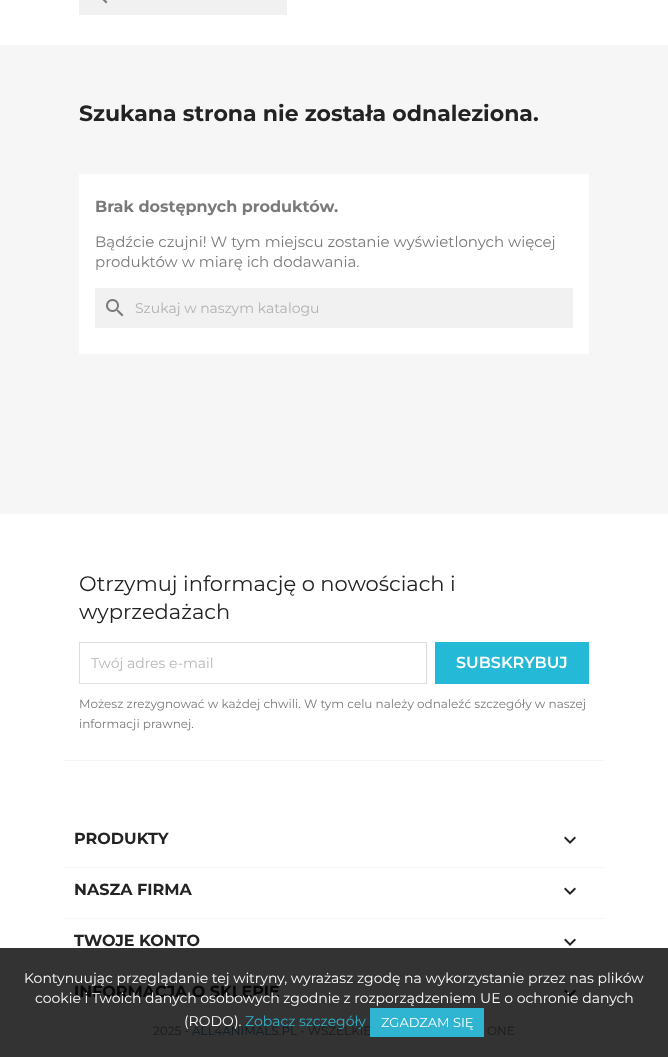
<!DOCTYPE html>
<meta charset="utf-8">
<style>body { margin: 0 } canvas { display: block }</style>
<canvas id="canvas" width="668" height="1057"></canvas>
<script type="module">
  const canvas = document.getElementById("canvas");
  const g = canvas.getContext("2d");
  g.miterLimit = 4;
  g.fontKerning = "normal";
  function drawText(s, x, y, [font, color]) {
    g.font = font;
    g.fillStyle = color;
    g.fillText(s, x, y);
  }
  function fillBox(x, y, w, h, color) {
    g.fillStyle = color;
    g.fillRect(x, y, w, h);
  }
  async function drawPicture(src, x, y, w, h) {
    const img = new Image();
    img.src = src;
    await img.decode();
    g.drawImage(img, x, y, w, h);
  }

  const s1 = ["bold 22px Montserrat", "#232323"];
  const s2 = ["bold 16px Montserrat", "#7A7A7A"];
  const s3 = ["15px Montserrat", "#7A7A7A"];
  const s4 = ["14px Montserrat", "#B1B1B1"];
  const s5 = ["21px Montserrat", "#232323"];
  const s6 = ["14px Montserrat", "#B7B7B7"];
  const s7 = ["600 16px Montserrat", "#FFFFFF"];
  const s8 = ["12px Montserrat", "#7A7A7A"];
  const s9 = ["bold 16px Montserrat", "#232323"];
  const s10 = ["14px Montserrat", "#FFFFFF"];
  const s11 = ["bold 16px Montserrat", "#070707"];
  const s12 = ["14px Montserrat", "#2FB5D2"];
  const s13 = ["12px Montserrat", "#1A1A1A"];
  const s14 = ["13px Montserrat", "#FFFFFF"];
  const s15 = ["12px Montserrat", "#0D1C22"];

  fillBox(0, 0, 668, 1057, "#FFFFFF");
  fillBox(0, 948, 668, 109, "#333333");
  fillBox(79, 0, 208, 15, "#F1F1F1");
  await drawPicture("pic1.png", 102, 0, 6, 4);
  fillBox(0, 45, 668, 469, "#F6F6F6");
  drawText("Szukana strona nie została odnaleziona.", 79, 121, s1);
  fillBox(79, 174, 510, 180, "#FFFFFF");
  drawText("Brak dostępnych produktów.", 95, 212, s2);
  drawText("Bądźcie czujni! W tym miejscu zostanie wyświetlonych więcej", 95, 247, s3);
  drawText("produktów w miarę ich dodawania.", 95, 267, s3);
  fillBox(95, 288, 478, 40, "#F1F1F1");
  await drawPicture("pic2.png", 106, 299, 18, 18);
  drawText("Szukaj w naszym katalogu", 135, 313, s4);
  fillBox(64, 760, 540, 1, "#F6F6F6");
  drawText("Otrzymuj informację o nowościach i", 79, 591, s5);
  drawText("wyprzedażach", 79, 619, s5);
  g.strokeStyle = "#DDDDDD";
  g.strokeRect(79.5, 642.5, 347, 41);
  drawText("Twój adres e-mail", 91, 668, s6);
  fillBox(435, 642, 154, 42, "#24B9D7");
  drawText("SUBSKRYBUJ", 456, 668, s7);
  drawText("Możesz zrezygnować w każdej chwili. W tym celu należy odnaleźć szczegóły w naszej", 79, 708, s8);
  drawText("informacji prawnej.", 79, 728, s8);
  fillBox(64, 867, 540, 1, "#F6F6F6");
  drawText("PRODUKTY", 74, 844, s9);
  await drawPicture("pic3.png", 564, 836, 12, 8);
  fillBox(64, 918, 540, 1, "#F6F6F6");
  drawText("NASZA FIRMA", 74, 895, s9);
  await drawPicture("pic3.png", 564, 887, 12, 8);
  drawText("TWOJE KONTO", 74, 946, s9);
  await drawPicture("pic3.png", 564, 938, 12, 8);
  drawText("Kontynuując przeglądanie tej witryny, wyrażasz zgodę na wykorzystanie przez nas plików", 24, 983, s10);
  drawText("INFORMACJA O SKLEPIE", 74, 997, s11);
  await drawPicture("pic4.png", 564, 989, 12, 8);
  drawText("cookie i Twoich danych osobowych zgodnie z rozporządzeniem UE o ochronie danych", 35, 1003, s10);
  drawText("(RODO).", 184, 1026, s10);
  drawText("Zobacz szczegóły", 245, 1026, s12);
  drawText("- WSZELKIE", 300, 1035, s13);
  fillBox(370, 1008, 114, 29, "#2FB5D2");
  drawText("ZGADZAM SIĘ", 381, 1027, s14);
  drawText("2025 -", 153, 1035, s13);
  drawText("ALL4ANIMALS.PL", 192, 1035, s15);
  drawText("ONE", 487, 1035, s13);
</script>
